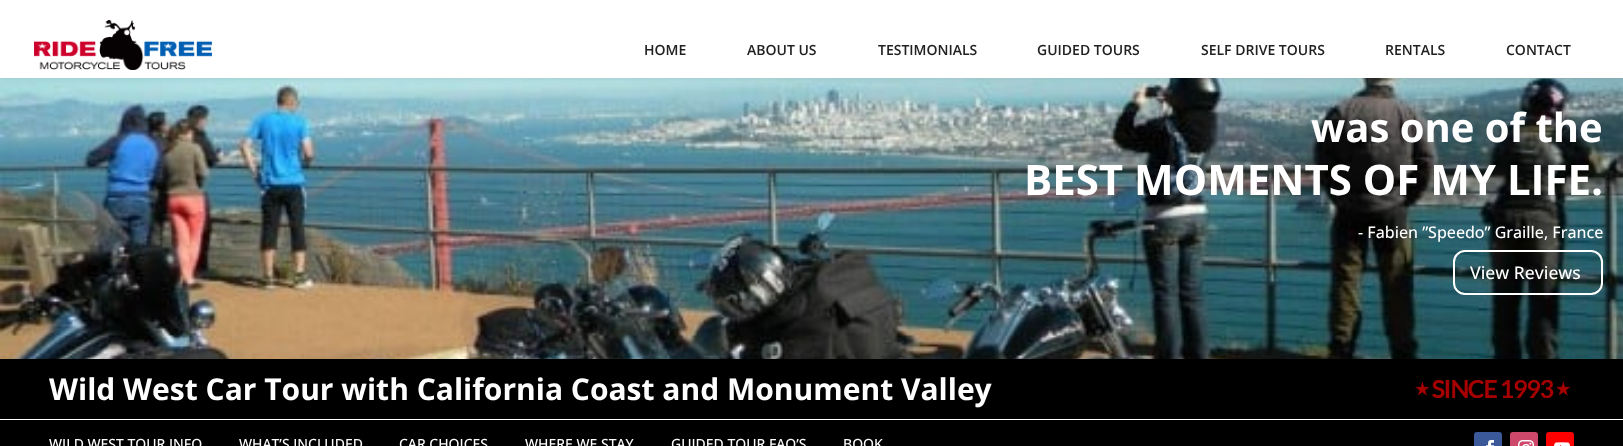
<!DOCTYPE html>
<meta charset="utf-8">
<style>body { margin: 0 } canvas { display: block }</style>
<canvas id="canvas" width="1623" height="446"></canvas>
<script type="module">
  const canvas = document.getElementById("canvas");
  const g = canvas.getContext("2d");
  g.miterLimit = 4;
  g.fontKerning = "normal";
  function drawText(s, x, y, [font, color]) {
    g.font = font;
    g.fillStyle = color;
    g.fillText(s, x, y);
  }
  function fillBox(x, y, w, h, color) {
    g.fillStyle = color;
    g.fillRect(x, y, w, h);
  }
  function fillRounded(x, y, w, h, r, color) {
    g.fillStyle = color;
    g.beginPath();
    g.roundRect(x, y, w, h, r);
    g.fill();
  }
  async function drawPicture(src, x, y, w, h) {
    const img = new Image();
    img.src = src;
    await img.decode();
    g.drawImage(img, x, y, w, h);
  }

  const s1 = ["600 14px Open Sans", "#212121"];
  const s2 = ["bold 40px Open Sans", "#FFFFFF"];
  const s3 = ["bold 42px Open Sans", "#FFFFFF"];
  const s4 = ["500 16px Open Sans", "#FFFFFF"];
  const s5 = ["500 17.5px Open Sans", "#FFFFFF"];
  const s6 = ["bold 30px Open Sans", "#FFFFFF"];
  const s7 = ["500 14px Open Sans", "#FFFFFF"];

  fillBox(0, 0, 1623, 446, "#FFFFFF");
  await drawPicture("pic2.png", 0, 78, 1623, 281);
  g.fillStyle = "rgba(0, 0, 0, 0.1)";
  g.filter = "blur(3.5px)";
  g.beginPath();
  g.rect(0, 0, 1623, 78);
  g.fill();
  g.filter = "none";
  fillBox(0, 0, 1623, 78, "#FFFFFF");
  await drawPicture("pic1.png", 34, 20, 178, 50);
  drawText("HOME", 644, 55, s1);
  drawText("ABOUT US", 747, 55, s1);
  drawText("TESTIMONIALS", 878, 55, s1);
  drawText("GUIDED TOURS", 1037, 55, s1);
  drawText("SELF DRIVE TOURS", 1201, 55, s1);
  drawText("RENTALS", 1385, 55, s1);
  drawText("CONTACT", 1506, 55, s1);
  drawText("was one of the", 1311, 142, s2);
  drawText("BEST MOMENTS OF MY LIFE.", 1024, 195, s3);
  drawText("- Fabien ”Speedo” Graille, France", 1358, 238, s4);
  g.beginPath();
  g.roundRect(1454, 251, 148, 43, 11);
  g.strokeStyle = "#FFFFFF";
  g.lineWidth = 2;
  g.stroke();
  drawText("View Reviews", 1470, 279, s5);
  fillBox(0, 359, 1623, 60, "#000000");
  drawText("Wild West Car Tour with California Coast and Monument Valley", 49, 400, s6);
  await drawPicture("pic3.png", 1415, 380, 156, 18);
  fillBox(0, 420, 1623, 26, "#000000");
  drawText("WILD WEST TOUR INFO", 49, 449, s7);
  drawText("WHAT’S INCLUDED", 239, 449, s7);
  drawText("CAR CHOICES", 399, 449, s7);
  drawText("WHERE WE STAY", 525, 449, s7);
  drawText("GUIDED TOUR FAQ’S", 671, 449, s7);
  drawText("BOOK", 843, 449, s7);
  fillRounded(1474, 432, 28, 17, 3, "#3B5998");
  await drawPicture("pic4.png", 1486, 440, 8, 6);
  fillRounded(1510, 432, 28, 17, 3, "#CD486B");
  await drawPicture("pic5.png", 1518, 440, 16, 6);
  fillRounded(1546, 432, 28, 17, 3, "#FF0000");
  await drawPicture("pic6.png", 1554, 442, 16, 4);
</script>
